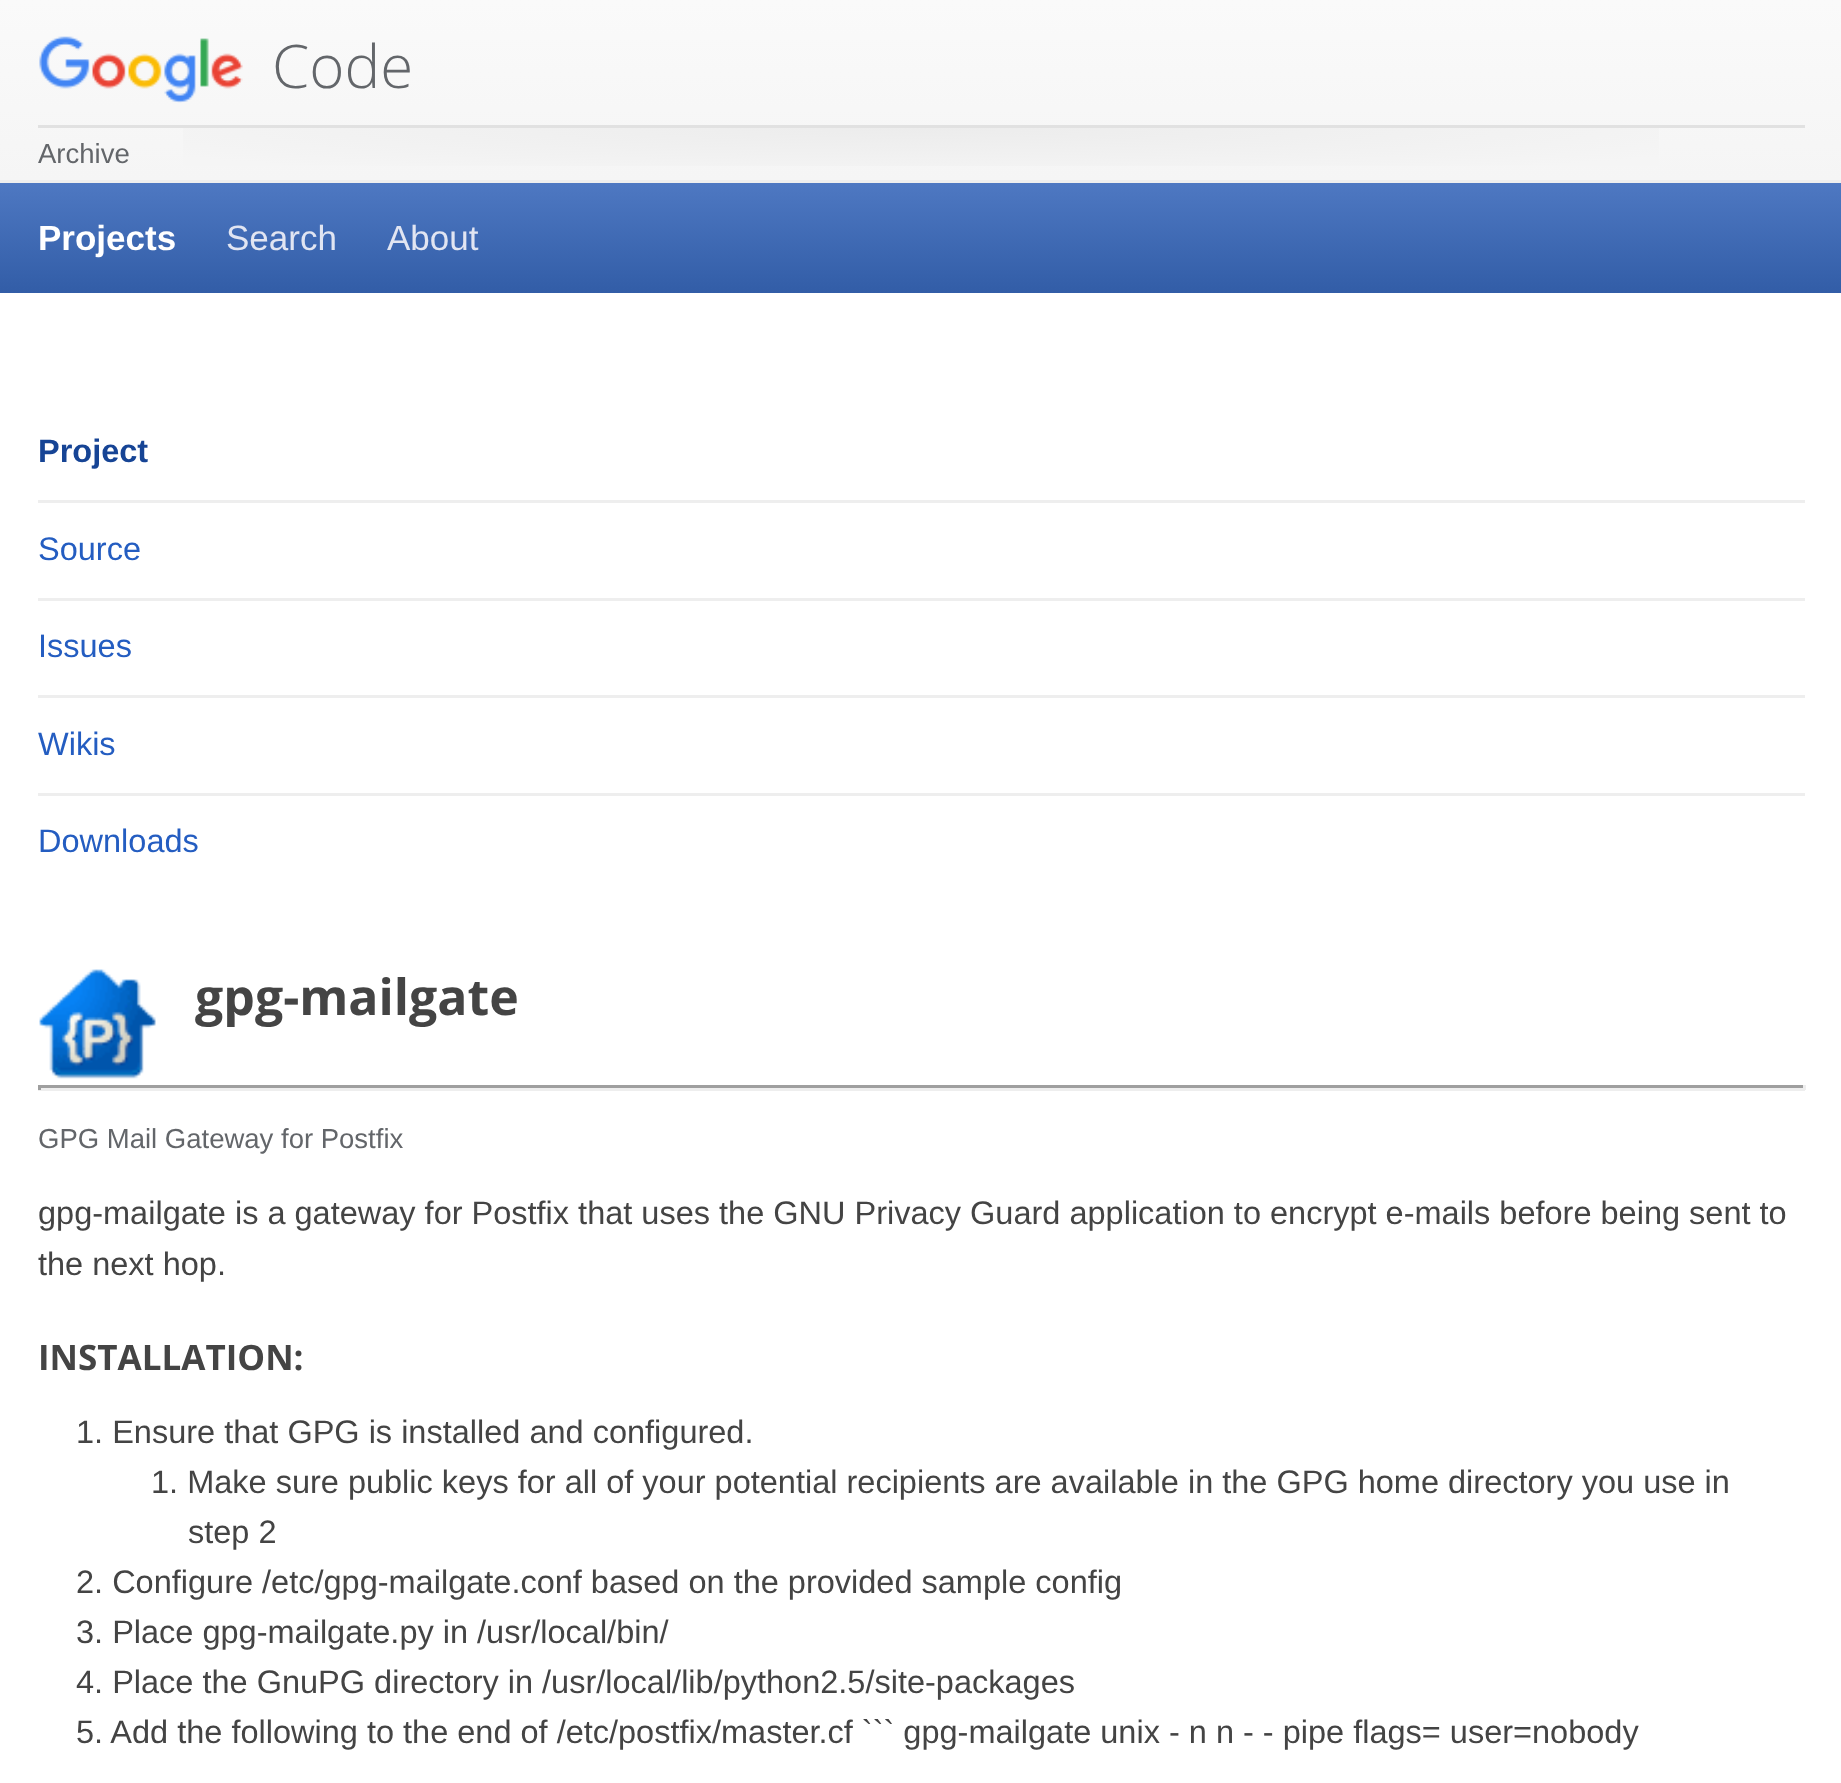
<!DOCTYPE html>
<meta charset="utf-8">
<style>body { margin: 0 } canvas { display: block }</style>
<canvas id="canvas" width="1841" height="1783"></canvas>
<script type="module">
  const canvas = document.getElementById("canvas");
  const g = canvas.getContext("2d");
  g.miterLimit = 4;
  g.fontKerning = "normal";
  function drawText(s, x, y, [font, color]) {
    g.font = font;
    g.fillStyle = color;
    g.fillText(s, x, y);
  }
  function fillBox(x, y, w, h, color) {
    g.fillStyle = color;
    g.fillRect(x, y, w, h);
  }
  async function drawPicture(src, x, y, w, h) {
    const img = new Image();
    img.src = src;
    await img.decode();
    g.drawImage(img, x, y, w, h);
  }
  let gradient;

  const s1 = ["300 60px Open Sans", "#63666A"];
  const s2 = ["27.5px Liberation Sans", "#63666A"];
  const s3 = ["bold 35px Liberation Sans", "#FFFFFF"];
  const s4 = ["35px Liberation Sans", "#E1E5F2"];
  const s5 = ["bold 32.5px Liberation Sans", "#164495"];
  const s6 = ["32.5px Liberation Sans", "#245DC1"];
  const s7 = ["bold 50px Open Sans", "#444444"];
  const s8 = ["32.5px Liberation Sans", "#444444"];
  const s9 = ["bold 35px Open Sans", "#444444"];

  fillBox(0, 0, 1841, 1783, "#FFFFFF");
  gradient = g.createLinearGradient(0, 0, 0, 180);
  gradient.addColorStop(0, "#FAFAFA");
  gradient.addColorStop(1, "#F5F5F5");
  g.fillStyle = gradient;
  g.fillRect(0, 0, 1841, 180);
  fillBox(0, 180, 1841, 3, "#EEEEEE");
  await drawPicture("pic1.png", 39, 36, 204, 67);
  drawText("Code", 272, 88, s1);
  gradient = g.createRadialGradient(921, 2134.94, 0, 921, 2134.94, 884);
  gradient.addColorStop(0, "#ECECEC");
  gradient.addColorStop(1, "#F5F5F5");
  g.fillStyle = gradient;
  g.beginPath();
  g.rect(183, 128, 1476, 38);
  g.save();
  g.clip();
  g.scale(1, 53 / 884);
  g.fillRect(0, 0, 1841, 29740);
  g.restore();
  fillBox(38, 125, 1767, 3, "#E1E1E1");
  drawText("Archive", 38, 163, s2);
  gradient = g.createLinearGradient(0, 183, 0, 293);
  gradient.addColorStop(0, "#4E78C2");
  gradient.addColorStop(1, "#325DA7");
  g.fillStyle = gradient;
  g.fillRect(0, 183, 1841, 110);
  drawText("Projects", 38, 250, s3);
  drawText("Search", 226, 250, s4);
  drawText("About", 387, 250, s4);
  fillBox(38, 500, 1767, 3, "#EEEEEE");
  drawText("Project", 38, 462, s5);
  fillBox(38, 598, 1767, 3, "#EEEEEE");
  drawText("Source", 38, 560, s6);
  fillBox(38, 695, 1767, 3, "#EEEEEE");
  drawText("Issues", 38, 657, s6);
  fillBox(38, 793, 1767, 3, "#EEEEEE");
  drawText("Wikis", 38, 755, s6);
  drawText("Downloads", 38, 852, s6);
  await drawPicture("pic2.png", 39, 969, 117, 110);
  drawText("gpg-mailgate", 195, 1015, s7);
  fillBox(38, 1085, 1767, 3, "#9F9F9F");
  fillBox(1803, 1085, 3, 5, "#EEEEEE");
  fillBox(38, 1088, 1767, 3, "#EEEEEE");
  fillBox(38, 1085, 3, 5, "#9F9F9F");
  drawText("GPG Mail Gateway for Postfix", 38, 1148, s2);
  drawText("gpg-mailgate is a gateway for Postfix that uses the GNU Privacy Guard application to encrypt e-mails before being sent to", 38, 1224, s8);
  drawText("the next hop.", 38, 1275, s8);
  drawText("INSTALLATION:", 38, 1370, s9);
  drawText("1. Ensure that GPG is installed and configured.", 76, 1443, s8);
  drawText("1. Make sure public keys for all of your potential recipients are available in the GPG home directory you use in", 151, 1493, s8);
  drawText("step 2", 188, 1543, s8);
  drawText("2. Configure /etc/gpg-mailgate.conf based on the provided sample config", 76, 1593, s8);
  drawText("3. Place gpg-mailgate.py in /usr/local/bin/", 76, 1643, s8);
  drawText("4. Place the GnuPG directory in /usr/local/lib/python2.5/site-packages", 76, 1693, s8);
  drawText("5. Add the following to the end of /etc/postfix/master.cf ``` gpg-mailgate unix - n n - - pipe flags= user=nobody", 76, 1743, s8);
</script>
